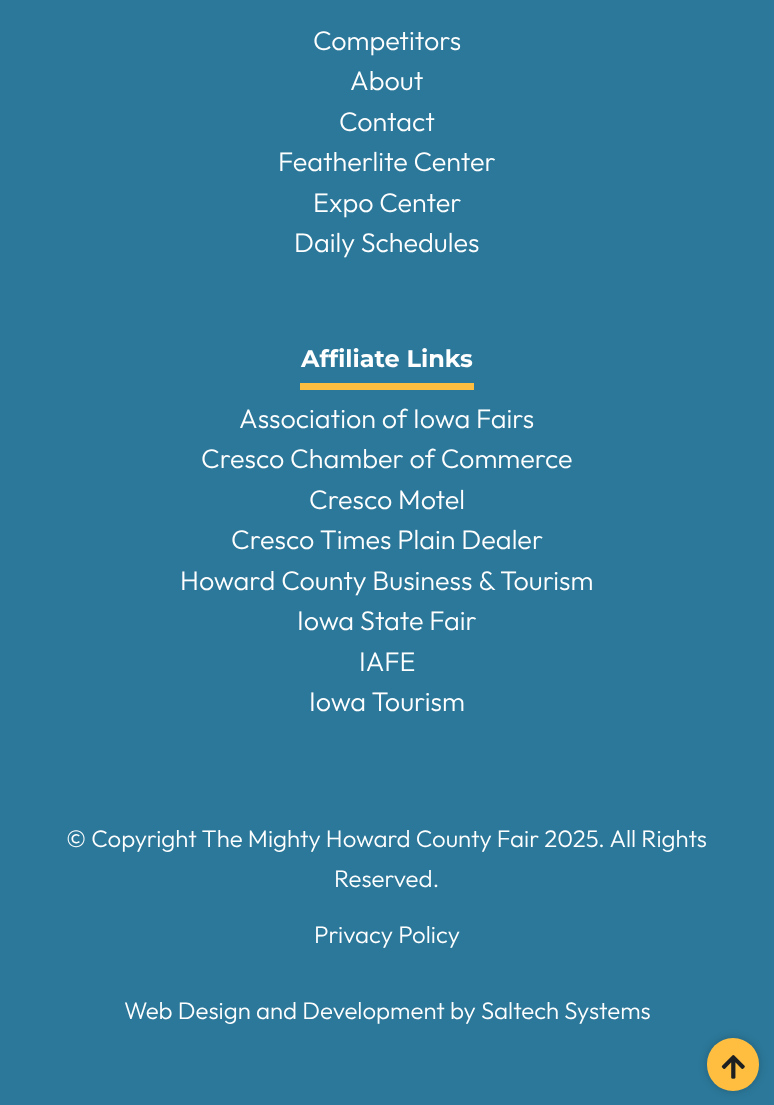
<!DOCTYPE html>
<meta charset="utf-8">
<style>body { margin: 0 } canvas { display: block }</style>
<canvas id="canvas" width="774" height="1105"></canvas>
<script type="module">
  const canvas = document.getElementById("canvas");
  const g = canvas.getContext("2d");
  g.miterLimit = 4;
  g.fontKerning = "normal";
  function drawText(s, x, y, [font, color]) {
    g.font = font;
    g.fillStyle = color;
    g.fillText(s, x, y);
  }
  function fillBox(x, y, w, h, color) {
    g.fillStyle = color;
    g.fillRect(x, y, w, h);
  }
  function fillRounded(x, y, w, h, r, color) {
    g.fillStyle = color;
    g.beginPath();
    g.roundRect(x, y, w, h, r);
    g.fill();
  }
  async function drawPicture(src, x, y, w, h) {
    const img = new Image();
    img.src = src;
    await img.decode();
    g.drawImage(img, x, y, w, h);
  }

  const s1 = ["300 27px Outfit", "#FFFFFF"];
  const s2 = ["bold 24px Montserrat", "#FFFFFF"];
  const s3 = ["300 24px Outfit", "#FFFFFF"];

  fillBox(0, 0, 774, 1105, "#2C789A");
  drawText("Competitors", 313, 50, s1);
  drawText("About", 350, 90, s1);
  drawText("Contact", 339, 131, s1);
  drawText("Featherlite Center", 278, 171, s1);
  drawText("Expo Center", 313, 212, s1);
  drawText("Daily Schedules", 294, 252, s1);
  drawText("Affiliate Links", 301, 367, s2);
  fillBox(300, 383, 174, 7, "#FFBE40");
  drawText("Association of Iowa Fairs", 239, 428, s1);
  drawText("Cresco Chamber of Commerce", 201, 468, s1);
  drawText("Cresco Motel", 309, 509, s1);
  drawText("Cresco Times Plain Dealer", 231, 549, s1);
  drawText("Howard County Business & Tourism", 180, 590, s1);
  drawText("Iowa State Fair", 297, 630, s1);
  drawText("IAFE", 359, 671, s1);
  drawText("Iowa Tourism", 309, 711, s1);
  drawText("© Copyright The Mighty Howard County Fair 2025", 66, 847, s3);
  drawText(". All Rights", 598, 847, s3);
  drawText("Reserved.", 334, 887, s3);
  drawText("Privacy Policy", 314, 943, s3);
  drawText("Web Design and Development by Saltech Systems", 124, 1019, s3);
  g.fillStyle = "rgba(0, 0, 0, 0.2)";
  g.filter = "blur(4px)";
  g.beginPath();
  g.roundRect(707, 1038, 52, 53, 26);
  g.fill();
  g.filter = "none";
  fillRounded(707, 1038, 52, 53, 26, "#FFBE40");
  await drawPicture("pic1.png", 721, 1055, 24, 24);
</script>
